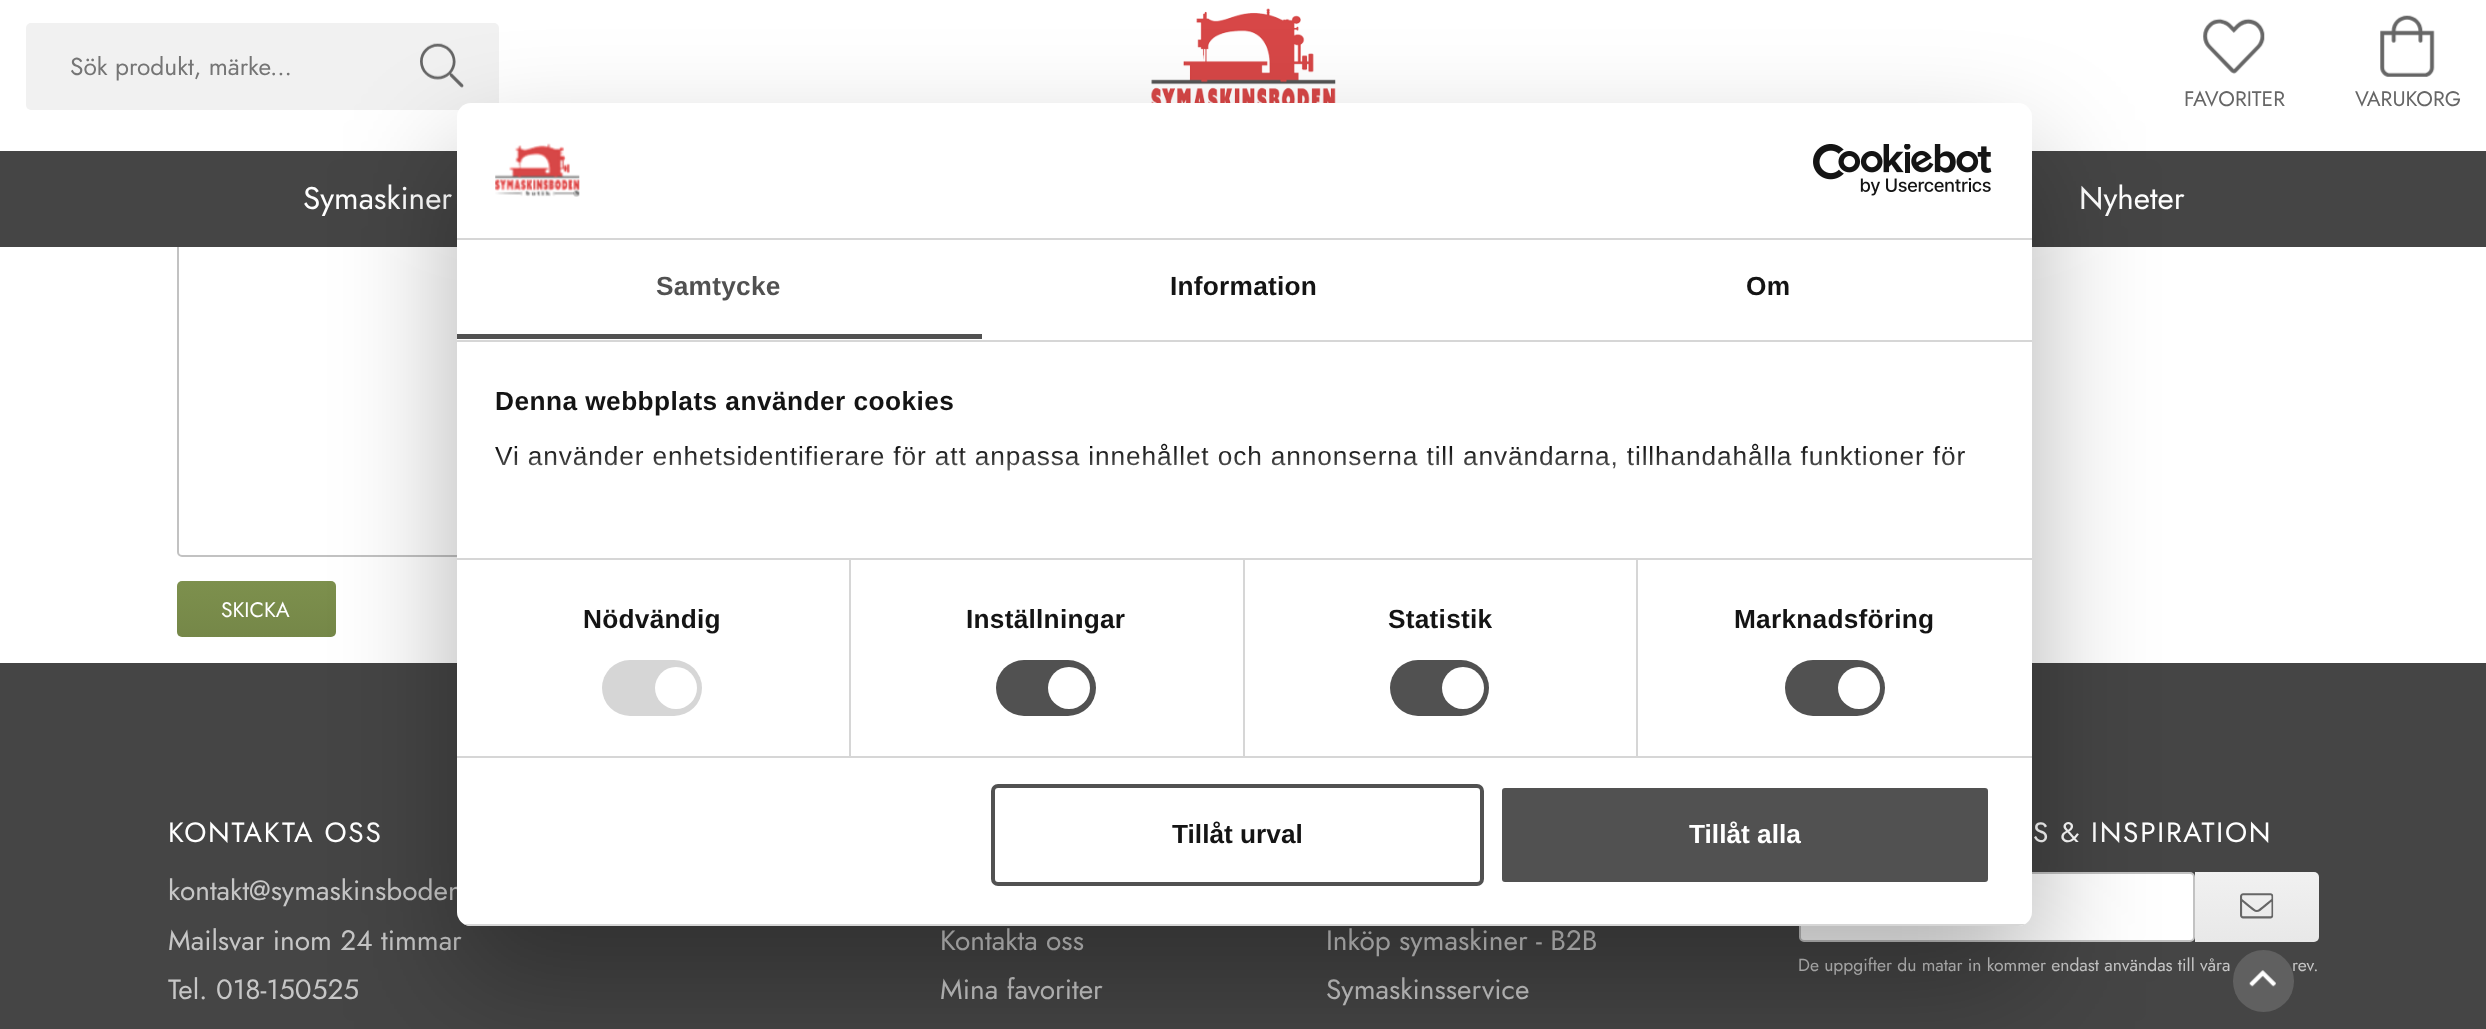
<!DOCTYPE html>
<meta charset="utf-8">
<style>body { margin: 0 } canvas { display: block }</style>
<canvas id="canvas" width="2486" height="1029"></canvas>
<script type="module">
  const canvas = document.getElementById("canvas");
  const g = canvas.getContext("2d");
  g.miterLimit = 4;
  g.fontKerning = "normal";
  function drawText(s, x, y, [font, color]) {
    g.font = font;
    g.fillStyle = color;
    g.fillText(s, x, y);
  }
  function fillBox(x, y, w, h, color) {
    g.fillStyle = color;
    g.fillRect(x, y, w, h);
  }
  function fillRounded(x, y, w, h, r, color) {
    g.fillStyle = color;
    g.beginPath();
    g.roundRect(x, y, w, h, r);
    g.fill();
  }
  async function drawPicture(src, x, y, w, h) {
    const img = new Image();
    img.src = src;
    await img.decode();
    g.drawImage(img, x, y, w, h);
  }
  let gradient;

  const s1 = ["24.5px Jost", "#757575"];
  const s2 = ["21px Jost", "#666666"];
  const s3 = ["31.5px Jost", "#FFFFFF"];
  const s4 = ["21px Jost", "#FFFFFF"];
  const s5 = ["28px Jost", "#FFFFFF"];
  const s6 = ["28px Jost", "#C6C6C6"];
  const s7 = ["17.5px Jost", "#C6C6C6"];
  const s8 = ["bold 26.25px Liberation Sans", "#515151"];
  const s9 = ["bold 26.25px Liberation Sans", "#141414"];
  const s10 = ["26.25px Liberation Sans", "#141414"];
  const s11 = ["bold 26.25px Liberation Sans", "#FFFFFF"];

  fillBox(0, 0, 2486, 1029, "#FFFFFF");
  g.fillStyle = "#F1F1F1";
  g.beginPath();
  g.roundRect(26, 23, 359, 87, [5, 0, 0, 5]);
  g.fill();
  drawText("Sök produkt, märke...", 70, 75, s1);
  g.fillStyle = "#F1F1F1";
  g.beginPath();
  g.roundRect(385, 23, 114, 87, [0, 5, 5, 0]);
  g.fill();
  await drawPicture("pic1.png", 420, 43, 44, 45);
  await drawPicture("pic2.png", 1151, 8, 185, 95);
  await drawPicture("pic3.png", 2203, 18, 62, 56);
  drawText("FAVORITER", 2184, 106, s2);
  await drawPicture("pic4.png", 2380, 15, 55, 62);
  drawText("VARUKORG", 2355, 106, s2);
  g.beginPath();
  g.roundRect(178, 162, 698, 394, 4);
  g.strokeStyle = "#C2C2C2";
  g.lineWidth = 2;
  g.stroke();
  fillBox(0, 151, 2486, 96, "#454545");
  drawText("Symaskiner", 303, 209, s3);
  drawText("Nyheter", 2079, 209, s3);
  gradient = g.createLinearGradient(256, 581, 256, 637);
  gradient.addColorStop(0, "#7D904D");
  gradient.addColorStop(1, "#758748");
  g.fillStyle = gradient;
  g.beginPath();
  g.roundRect(177, 581, 159, 56, 5);
  g.fill();
  drawText("SKICKA", 221, 617, s4);
  fillBox(0, 663, 2486, 366, "#454545");
  g.letterSpacing = "1.75px";
  drawText("KONTAKTA OSS", 168, 842, s5);
  g.letterSpacing = "0px";
  drawText("kontakt@symaskinsboden", 168, 900, s6);
  drawText("Mailsvar inom 24 timmar", 168, 950, s6);
  drawText("Tel. 018-150525", 168, 999, s6);
  drawText("Kontakta oss", 940, 950, s6);
  drawText("Mina favoriter", 940, 999, s6);
  drawText("Inköp symaskiner - B2B", 1326, 950, s6);
  drawText("Symaskinsservice", 1326, 999, s6);
  g.letterSpacing = "1.75px";
  drawText("S & INSPIRATION", 2033, 842, s5);
  g.beginPath();
  g.roundRect(1800, 873, 394, 68, 4);
  g.fill();
  g.stroke();
  gradient = g.createLinearGradient(2257, 872, 2257, 942);
  gradient.addColorStop(0, "#F1F1F1");
  gradient.addColorStop(1, "#E8E8E8");
  g.fillStyle = gradient;
  g.beginPath();
  g.roundRect(2195, 872, 124, 70, [0, 5, 5, 0]);
  g.fill();
  await drawPicture("pic5.png", 2240, 893, 34, 26);
  g.letterSpacing = "0px";
  drawText("De uppgifter du matar in kommer endast användas till våra", 1798, 971, s7);
  drawText("rev.", 2292, 971, s7);
  g.fillStyle = "rgba(0, 0, 0, 0.3)";
  g.filter = "blur(59.5px)";
  g.beginPath();
  g.roundRect(457, 159, 1575, 823, 14);
  g.fill();
  g.filter = "none";
  fillRounded(457, 103, 1575, 823, 14, "#FFFFFF");
  fillBox(457, 238, 1575, 2, "#D6D6D6");
  await drawPicture("pic6.png", 495, 143, 85, 54);
  await drawPicture("pic7.png", 1813, 144, 179, 52);
  fillBox(457, 340, 1575, 2, "#D6D6D6");
  fillBox(457, 334, 525, 5, "#515151");
  g.letterSpacing = "0.25px";
  drawText("Samtycke", 656, 295, s8);
  drawText("Information", 1170, 295, s9);
  drawText("Om", 1746, 295, s9);
  fillBox(457, 558, 1575, 2, "#D6D6D6");
  g.letterSpacing = "0.45px";
  drawText("Denna webbplats använder cookies", 495, 410, s9);
  g.letterSpacing = "0.88px";
  drawText("Vi använder enhetsidentifierare för att anpassa innehållet och annonserna till användarna, tillhandahålla funktioner för", 495, 465, s10);
  gradient = g.createLinearGradient(1226, 558, 1226, 449);
  gradient.addColorStop(0, "#FFFFFF");
  gradient.addColorStop(0.5, "rgba(255, 255, 255, 0.8)");
  gradient.addColorStop(1, "rgba(255, 255, 255, 0)");
  g.fillStyle = gradient;
  g.fillRect(497, 450, 1468, 21);
  fillBox(457, 756, 1575, 2, "#D6D6D6");
  fillBox(849, 560, 2, 196, "#D6D6D6");
  g.letterSpacing = "0.25px";
  drawText("Nödvändig", 583, 628, s9);
  fillRounded(602, 660, 100, 56, 28, "#D6D6D6");
  g.fillStyle = "#FFFFFF";
  g.beginPath();
  g.arc(676, 688, 21, 0, Math.PI * 2);
  g.fill();
  fillBox(1243, 560, 2, 196, "#D6D6D6");
  drawText("Inställningar", 966, 628, s9);
  fillRounded(996, 660, 100, 56, 28, "#515151");
  g.fillStyle = "#FFFFFF";
  g.beginPath();
  g.arc(1069, 688, 21, 0, Math.PI * 2);
  g.fill();
  fillBox(1636, 560, 2, 196, "#D6D6D6");
  drawText("Statistik", 1388, 628, s9);
  fillRounded(1390, 660, 99, 56, 28, "#515151");
  g.fillStyle = "#FFFFFF";
  g.beginPath();
  g.arc(1463, 688, 21, 0, Math.PI * 2);
  g.fill();
  drawText("Marknadsföring", 1734, 628, s9);
  fillRounded(1785, 660, 100, 56, 28, "#515151");
  g.fillStyle = "#FFFFFF";
  g.beginPath();
  g.arc(1859, 688, 21, 0, Math.PI * 2);
  g.fill();
  g.save();
  g.beginPath();
  g.roundRect(457, 103, 1575, 823, 14);
  g.clip();
  fillBox(457, 924, 1575, 2, "#D6D6D6");
  g.restore();
  g.beginPath();
  g.roundRect(993, 786, 489, 98, 5);
  g.strokeStyle = "#515151";
  g.lineWidth = 4;
  g.stroke();
  g.letterSpacing = "0px";
  drawText("Tillåt urval", 1172, 843, s9);
  g.fillStyle = "#515151";
  g.beginPath();
  g.roundRect(1500, 786, 490, 98, 5);
  g.fill();
  g.strokeStyle = "#FFFFFF";
  g.stroke();
  drawText("Tillåt alla", 1689, 843, s11);
  fillRounded(2233, 950, 61, 62, 30.5, "rgba(102, 102, 102, 0.8)");
  await drawPicture("pic8.png", 2249, 970, 27, 17);
</script>
